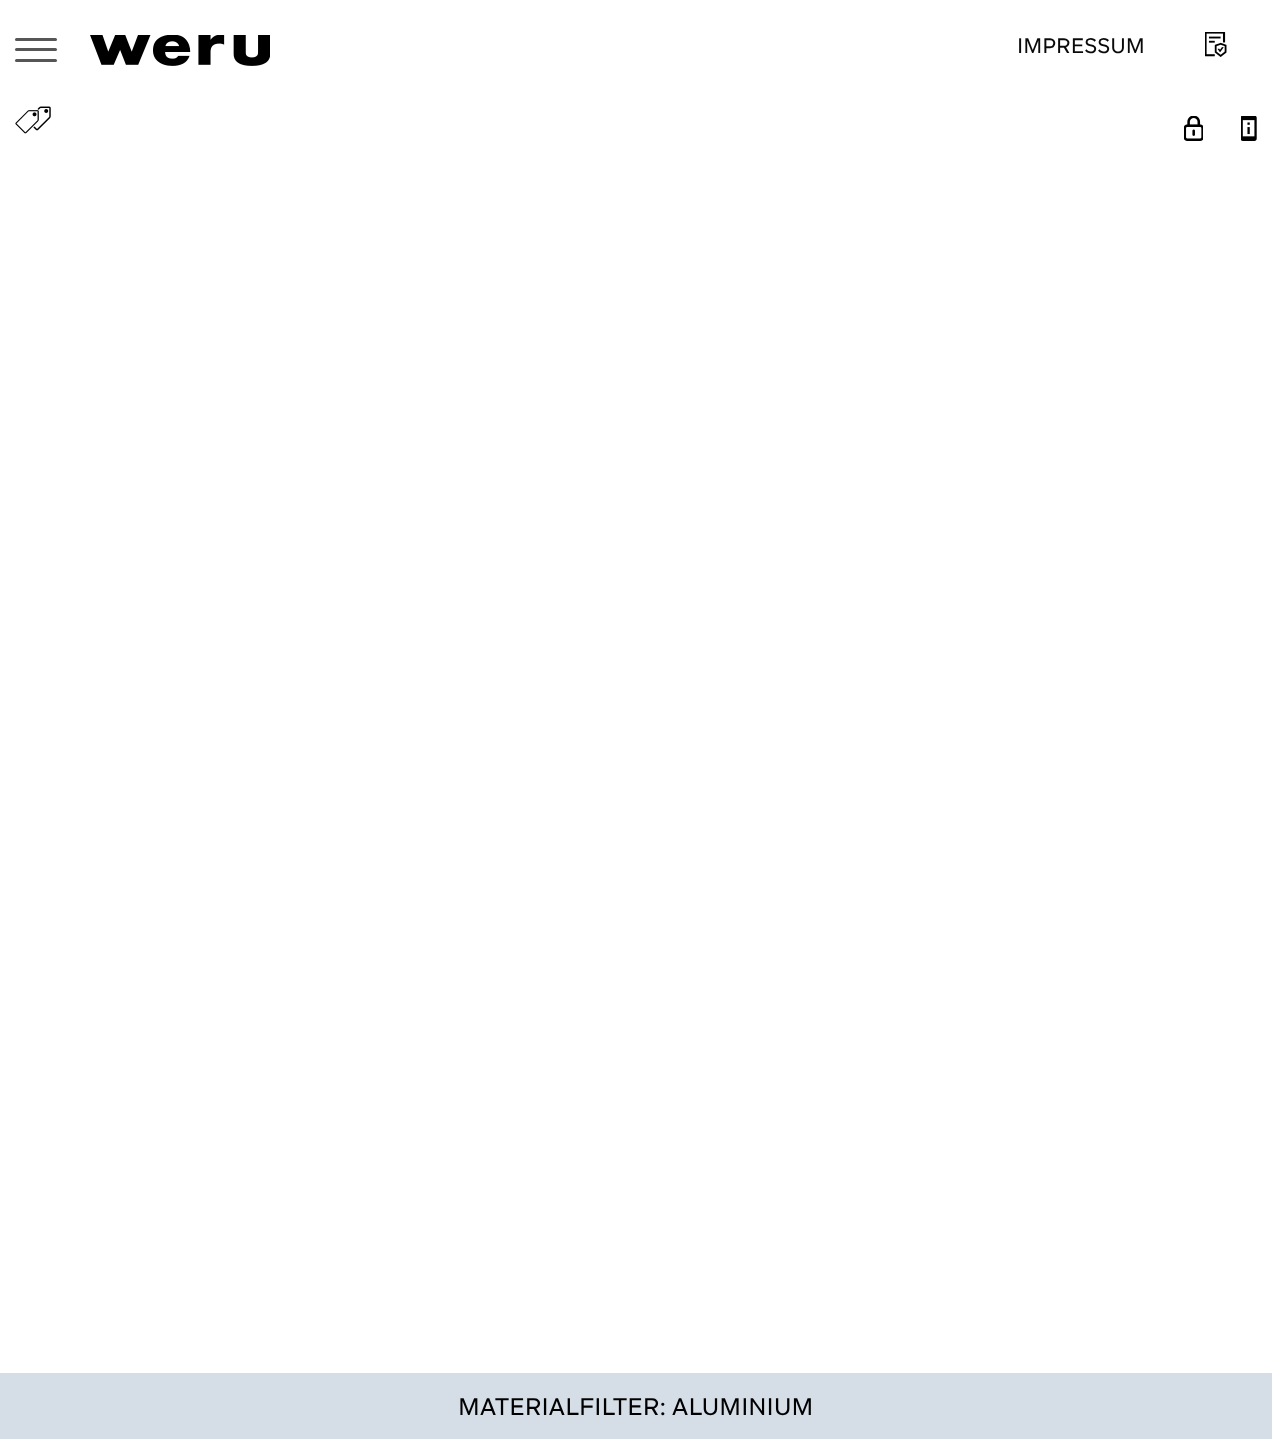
<!DOCTYPE html>
<meta charset="utf-8">
<style>body { margin: 0 } canvas { display: block }</style>
<canvas id="canvas" width="1272" height="1439"></canvas>
<script type="module">
  const canvas = document.getElementById("canvas");
  const g = canvas.getContext("2d");
  g.miterLimit = 4;
  g.fontKerning = "normal";
  function drawText(s, x, y, [font, color]) {
    g.font = font;
    g.fillStyle = color;
    g.fillText(s, x, y);
  }
  function fillBox(x, y, w, h, color) {
    g.fillStyle = color;
    g.fillRect(x, y, w, h);
  }
  function fillRounded(x, y, w, h, r, color) {
    g.fillStyle = color;
    g.beginPath();
    g.roundRect(x, y, w, h, r);
    g.fill();
  }
  async function drawPicture(src, x, y, w, h) {
    const img = new Image();
    img.src = src;
    await img.decode();
    g.drawImage(img, x, y, w, h);
  }

  const s1 = ["21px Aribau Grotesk", "#0A0A0A"];
  const s2 = ["24px Aribau Grotesk", "#000000"];

  fillBox(0, 0, 1272, 1439, "#FFFFFF");
  fillRounded(15, 38, 42, 3, 1.5, "#565656");
  fillRounded(15, 48, 42, 3, 1.5, "#565656");
  fillRounded(15, 59, 42, 3, 1.5, "#565656");
  await drawPicture("pic1.png", 90, 35, 180, 31);
  drawText("IMPRESSUM", 1017, 53, s1);
  await drawPicture("pic2.png", 1205, 32, 22, 25);
  await drawPicture("pic3.png", 1184, 116, 19, 25);
  await drawPicture("pic4.png", 1241, 116, 16, 25);
  await drawPicture("pic5.png", 15, 106, 36, 28);
  fillBox(0, 1373, 1272, 66, "#D5DDE6");
  drawText("MATERIALFILTER: ALUMINIUM", 458, 1415, s2);
</script>
